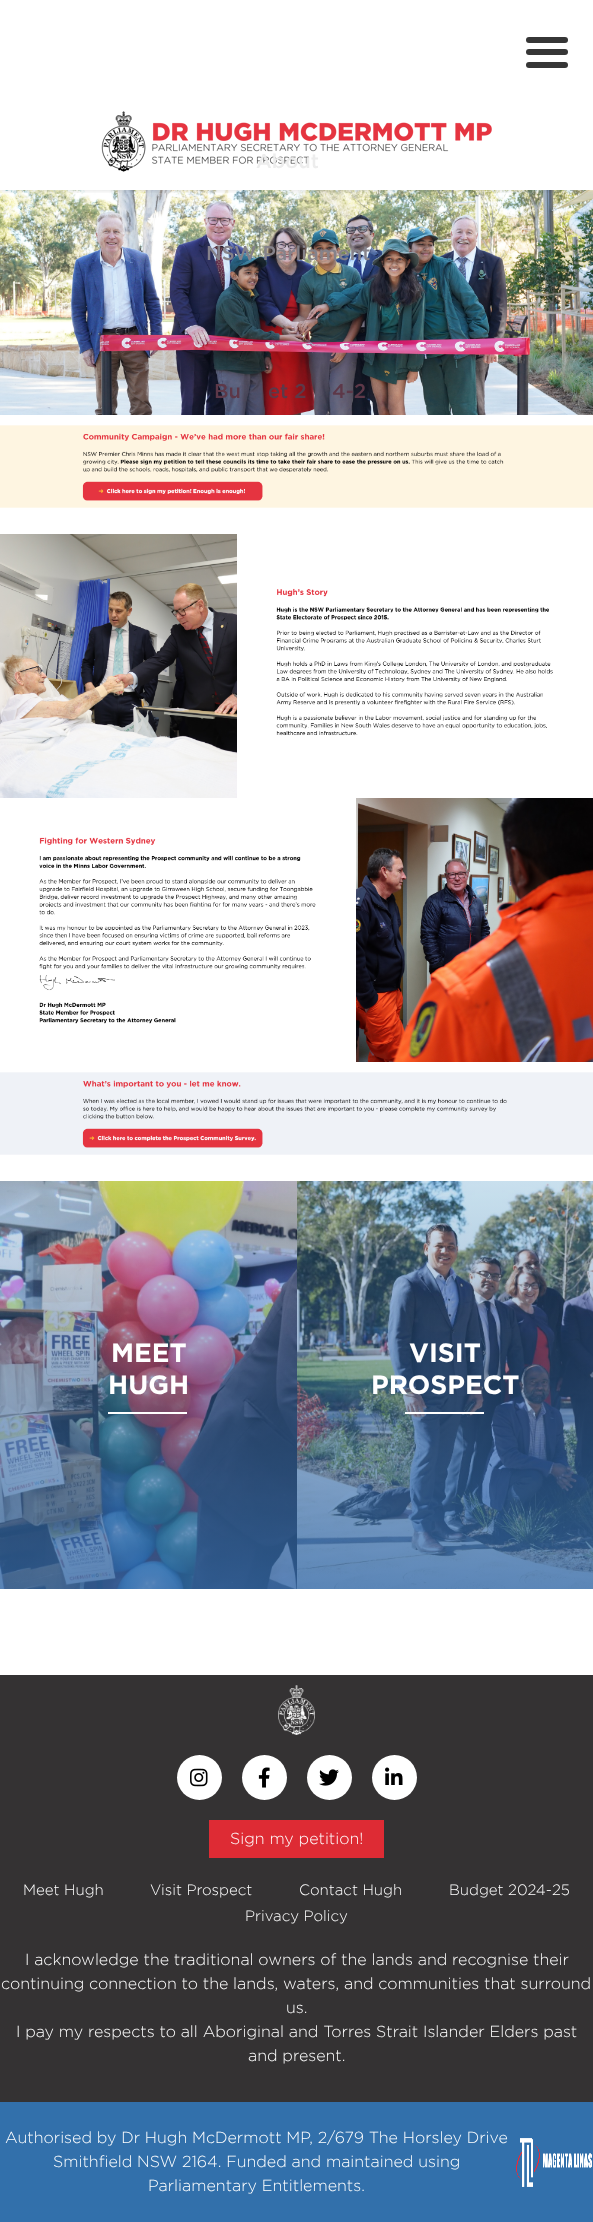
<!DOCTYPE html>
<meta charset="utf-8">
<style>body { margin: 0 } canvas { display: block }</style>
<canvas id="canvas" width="593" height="2222"></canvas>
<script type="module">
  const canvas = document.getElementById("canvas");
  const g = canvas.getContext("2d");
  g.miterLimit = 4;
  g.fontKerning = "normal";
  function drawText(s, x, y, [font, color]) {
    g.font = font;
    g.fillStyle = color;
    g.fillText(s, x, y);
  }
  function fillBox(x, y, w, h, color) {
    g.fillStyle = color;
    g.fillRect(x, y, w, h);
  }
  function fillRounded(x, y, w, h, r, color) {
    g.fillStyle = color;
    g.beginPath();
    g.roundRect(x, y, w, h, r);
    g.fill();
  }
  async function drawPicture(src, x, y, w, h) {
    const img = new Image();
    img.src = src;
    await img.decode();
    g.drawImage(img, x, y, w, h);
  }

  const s1 = ["500 20px Gotham", "#EDEDED"];
  const s2 = ["500 20px Gotham", "#85828A"];
  const s3 = ["500 20px Gotham", "#5D3848"];
  const s4 = ["bold 26.5px Gotham", "#FFFFFF"];
  const s5 = ["300 16px Gotham", "#FFFFFF"];
  const s6 = ["300 15px Gotham", "#FFFFFF"];

  fillBox(0, 0, 593, 2222, "#FFFFFF");
  await drawPicture("pic2.png", 0, 190, 593, 225);
  g.save();
  g.beginPath();
  g.rect(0, 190, 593, 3);
  g.clip();
  g.fillStyle = "rgba(0, 0, 0, 0.1)";
  g.filter = "blur(2.5px)";
  g.beginPath();
  g.rect(0, 1, 593, 190);
  g.fill();
  g.filter = "none";
  g.restore();
  fillRounded(526, 37, 42, 6, 3, "#363636");
  fillRounded(526, 49, 42, 6, 3, "#363636");
  fillRounded(526, 62, 42, 6, 3, "#363636");
  await drawPicture("pic1.png", 101, 111, 391, 61);
  drawText("About", 256, 168, s1);
  drawText("NSW Parliament", 206, 260, s2);
  drawText("Bu", 214, 398, s3);
  drawText("et 2", 268, 398, s3);
  drawText("4-2", 332, 398, s3);
  await drawPicture("pic3.png", 0, 425, 593, 83);
  await drawPicture("pic4.png", 0, 534, 553, 264);
  await drawPicture("pic5.png", 39, 798, 554, 264);
  await drawPicture("pic6.png", 0, 1072, 593, 83);
  await drawPicture("pic7.png", 0, 1181, 297, 408);
  drawText("MEET", 111, 1362, s4);
  drawText("HUGH", 108, 1394, s4);
  fillBox(108, 1412, 79, 2, "#FFFFFF");
  await drawPicture("pic8.png", 297, 1181, 296, 408);
  drawText("VISIT", 409, 1362, s4);
  drawText("PROSPECT", 371, 1394, s4);
  fillBox(405, 1412, 79, 2, "#FFFFFF");
  fillBox(0, 1675, 593, 427, "#343233");
  await drawPicture("pic9.png", 278, 1685, 37, 50);
  g.fillStyle = "#FFFFFF";
  g.beginPath();
  g.arc(199.5, 1777.5, 22.5, 0, Math.PI * 2);
  g.fill();
  await drawPicture("pic10.png", 190, 1768, 18, 19);
  g.beginPath();
  g.arc(264.5, 1777.5, 22.5, 0, Math.PI * 2);
  g.fill();
  await drawPicture("pic11.png", 258, 1767, 12, 21);
  g.beginPath();
  g.arc(329.5, 1777.5, 22.5, 0, Math.PI * 2);
  g.fill();
  await drawPicture("pic12.png", 319, 1769, 20, 17);
  g.beginPath();
  g.arc(394.5, 1777.5, 22.5, 0, Math.PI * 2);
  g.fill();
  await drawPicture("pic13.png", 385, 1767, 18, 18);
  fillBox(209, 1820, 175, 38, "#DE2B34");
  drawText("Sign my petition!", 230, 1844, s5);
  drawText("Meet Hugh", 23, 1895, s6);
  drawText("Visit Prospect", 150, 1895, s6);
  drawText("Contact Hugh", 299, 1895, s6);
  drawText("Budget 2024-25", 449, 1895, s6);
  drawText("Privacy Policy", 245, 1921, s6);
  drawText("I acknowledge the traditional owners of the lands and recognise their", 25, 1965, s5);
  drawText("continuing connection to the lands, waters, and communities that surround", 1, 1989, s5);
  drawText("us.", 286, 2013, s5);
  drawText("I pay my respects to all Aboriginal and Torres Strait Islander Elders past", 16, 2037, s5);
  drawText("and present.", 248, 2061, s5);
  fillBox(0, 2102, 593, 120, "#3270AB");
  drawText("Authorised by Dr Hugh McDermott MP, 2/679 The Horsley Drive", 5, 2143, s5);
  drawText("Smithfield NSW 2164. Funded and maintained using", 53, 2167, s5);
  drawText("Parliamentary Entitlements.", 148, 2191, s5);
  await drawPicture("pic14.png", 516, 2138, 76, 49);
</script>
